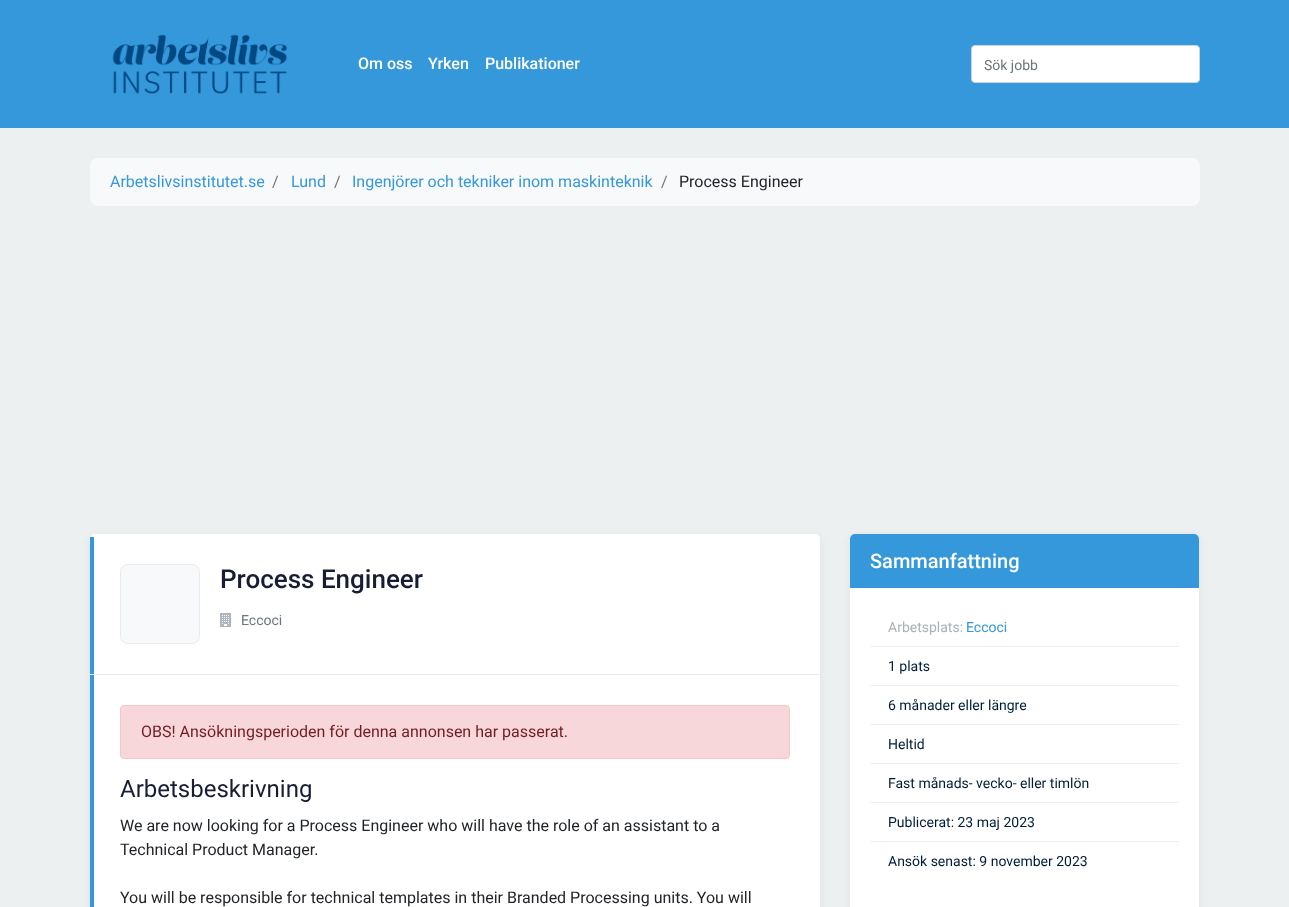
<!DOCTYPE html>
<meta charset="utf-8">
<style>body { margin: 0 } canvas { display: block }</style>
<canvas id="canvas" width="1289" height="907"></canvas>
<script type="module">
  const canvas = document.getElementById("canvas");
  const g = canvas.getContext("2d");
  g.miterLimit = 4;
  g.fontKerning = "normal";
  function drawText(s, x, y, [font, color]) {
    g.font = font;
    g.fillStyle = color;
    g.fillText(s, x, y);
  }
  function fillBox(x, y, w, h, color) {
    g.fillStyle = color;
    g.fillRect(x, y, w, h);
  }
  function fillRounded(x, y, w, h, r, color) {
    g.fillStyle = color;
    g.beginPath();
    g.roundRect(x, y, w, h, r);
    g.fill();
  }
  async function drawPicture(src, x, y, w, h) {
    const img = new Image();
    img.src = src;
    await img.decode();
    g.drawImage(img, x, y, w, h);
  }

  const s1 = ["500 16px Roboto", "#FFFFFF"];
  const s2 = ["14px Roboto", "#6C757D"];
  const s3 = ["16px Roboto", "#3498DB"];
  const s4 = ["16px Roboto", "#6C757D"];
  const s5 = ["16px Roboto", "#212529"];
  const s6 = ["500 26px Roboto", "#191D34"];
  const s7 = ["16px Roboto", "#721C24"];
  const s8 = ["24px Roboto", "#191D34"];
  const s9 = ["500 20px Roboto", "#FFFFFF"];
  const s10 = ["14px Roboto", "#AAB1B7"];
  const s11 = ["14px Roboto", "#3498DB"];
  const s12 = ["14px Roboto", "#001D38"];

  fillBox(0, 0, 1289, 907, "#ECF0F1");
  fillBox(0, 0, 1289, 128, "#3498DB");
  await drawPicture("pic1.png", 112, 34, 176, 60);
  drawText("Om oss", 358, 69, s1);
  drawText("Yrken", 428, 69, s1);
  drawText("Publikationer", 485, 69, s1);
  g.beginPath();
  g.roundRect(971.5, 45.5, 228, 37, 3.5);
  g.fill();
  g.strokeStyle = "#CED4DA";
  g.stroke();
  drawText("Sök jobb", 984, 70, s2);
  fillRounded(90, 158, 1110, 48, 8, "#F8F9FA");
  drawText("Arbetslivsinstitutet.se", 110, 187, s3);
  drawText("/", 272, 187, s4);
  drawText("Lund", 291, 187, s3);
  drawText("/", 334, 187, s4);
  drawText("Ingenjörer och tekniker inom maskinteknik", 352, 187, s3);
  drawText("/", 661, 187, s4);
  drawText("Process Engineer", 679, 187, s5);
  g.fillStyle = "rgba(0, 0, 0, 0.06)";
  g.filter = "blur(4px)";
  g.beginPath();
  g.roundRect(90, 536, 730, 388, 5);
  g.fill();
  g.filter = "none";
  fillRounded(90, 534, 730, 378, 5, "#FFFFFF");
  fillBox(90, 537, 4, 370, "#3498DB");
  g.fillStyle = "#F8F9FA";
  g.beginPath();
  g.roundRect(120.5, 564.5, 79, 79, 7.5);
  g.fill();
  g.strokeStyle = "#E9ECEF";
  g.stroke();
  drawText("Process Engineer", 220, 588, s6);
  await drawPicture("pic2.png", 220, 613, 11, 14);
  drawText("Eccoci", 241, 625, s2);
  fillBox(90, 674, 730, 1, "#EAEAEA");
  g.fillStyle = "#F8D7DA";
  g.beginPath();
  g.roundRect(120.5, 705.5, 669, 53, 3.5);
  g.fill();
  g.strokeStyle = "#F5C6CB";
  g.stroke();
  drawText("OBS! Ansökningsperioden för denna annonsen har passerat.", 141, 737, s7);
  drawText("Arbetsbeskrivning", 120, 797, s8);
  drawText("We are now looking for a Process Engineer who will have the role of an assistant to a", 120, 831, s5);
  drawText("Technical Product Manager.", 120, 855, s5);
  drawText("You will be responsible for technical templates in their Branded Processing units. You will", 120, 903, s5);
  g.fillStyle = "rgba(0, 0, 0, 0.06)";
  g.filter = "blur(4px)";
  g.beginPath();
  g.roundRect(850, 536, 349, 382, 5);
  g.fill();
  g.filter = "none";
  fillRounded(850, 534, 349, 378, 5, "#FFFFFF");
  g.fillStyle = "#3498DB";
  g.beginPath();
  g.roundRect(850, 534, 349, 54, [5, 5, 0, 0]);
  g.fill();
  drawText("Sammanfattning", 870, 568, s9);
  fillBox(870, 646, 309, 1, "#F0F0F0");
  drawText("Arbetsplats:", 888, 632, s10);
  drawText("Eccoci", 966, 632, s11);
  fillBox(870, 685, 309, 1, "#F0F0F0");
  drawText("1 plats", 888, 671, s12);
  fillBox(870, 724, 309, 1, "#F0F0F0");
  drawText("6 månader eller längre", 888, 710, s12);
  fillBox(870, 763, 309, 1, "#F0F0F0");
  drawText("Heltid", 888, 749, s12);
  fillBox(870, 802, 309, 1, "#F0F0F0");
  drawText("Fast månads- vecko- eller timlön", 888, 788, s12);
  fillBox(870, 841, 309, 1, "#F0F0F0");
  drawText("Publicerat: 23 maj 2023", 888, 827, s12);
  drawText("Ansök senast: 9 november 2023", 888, 866, s12);
</script>
